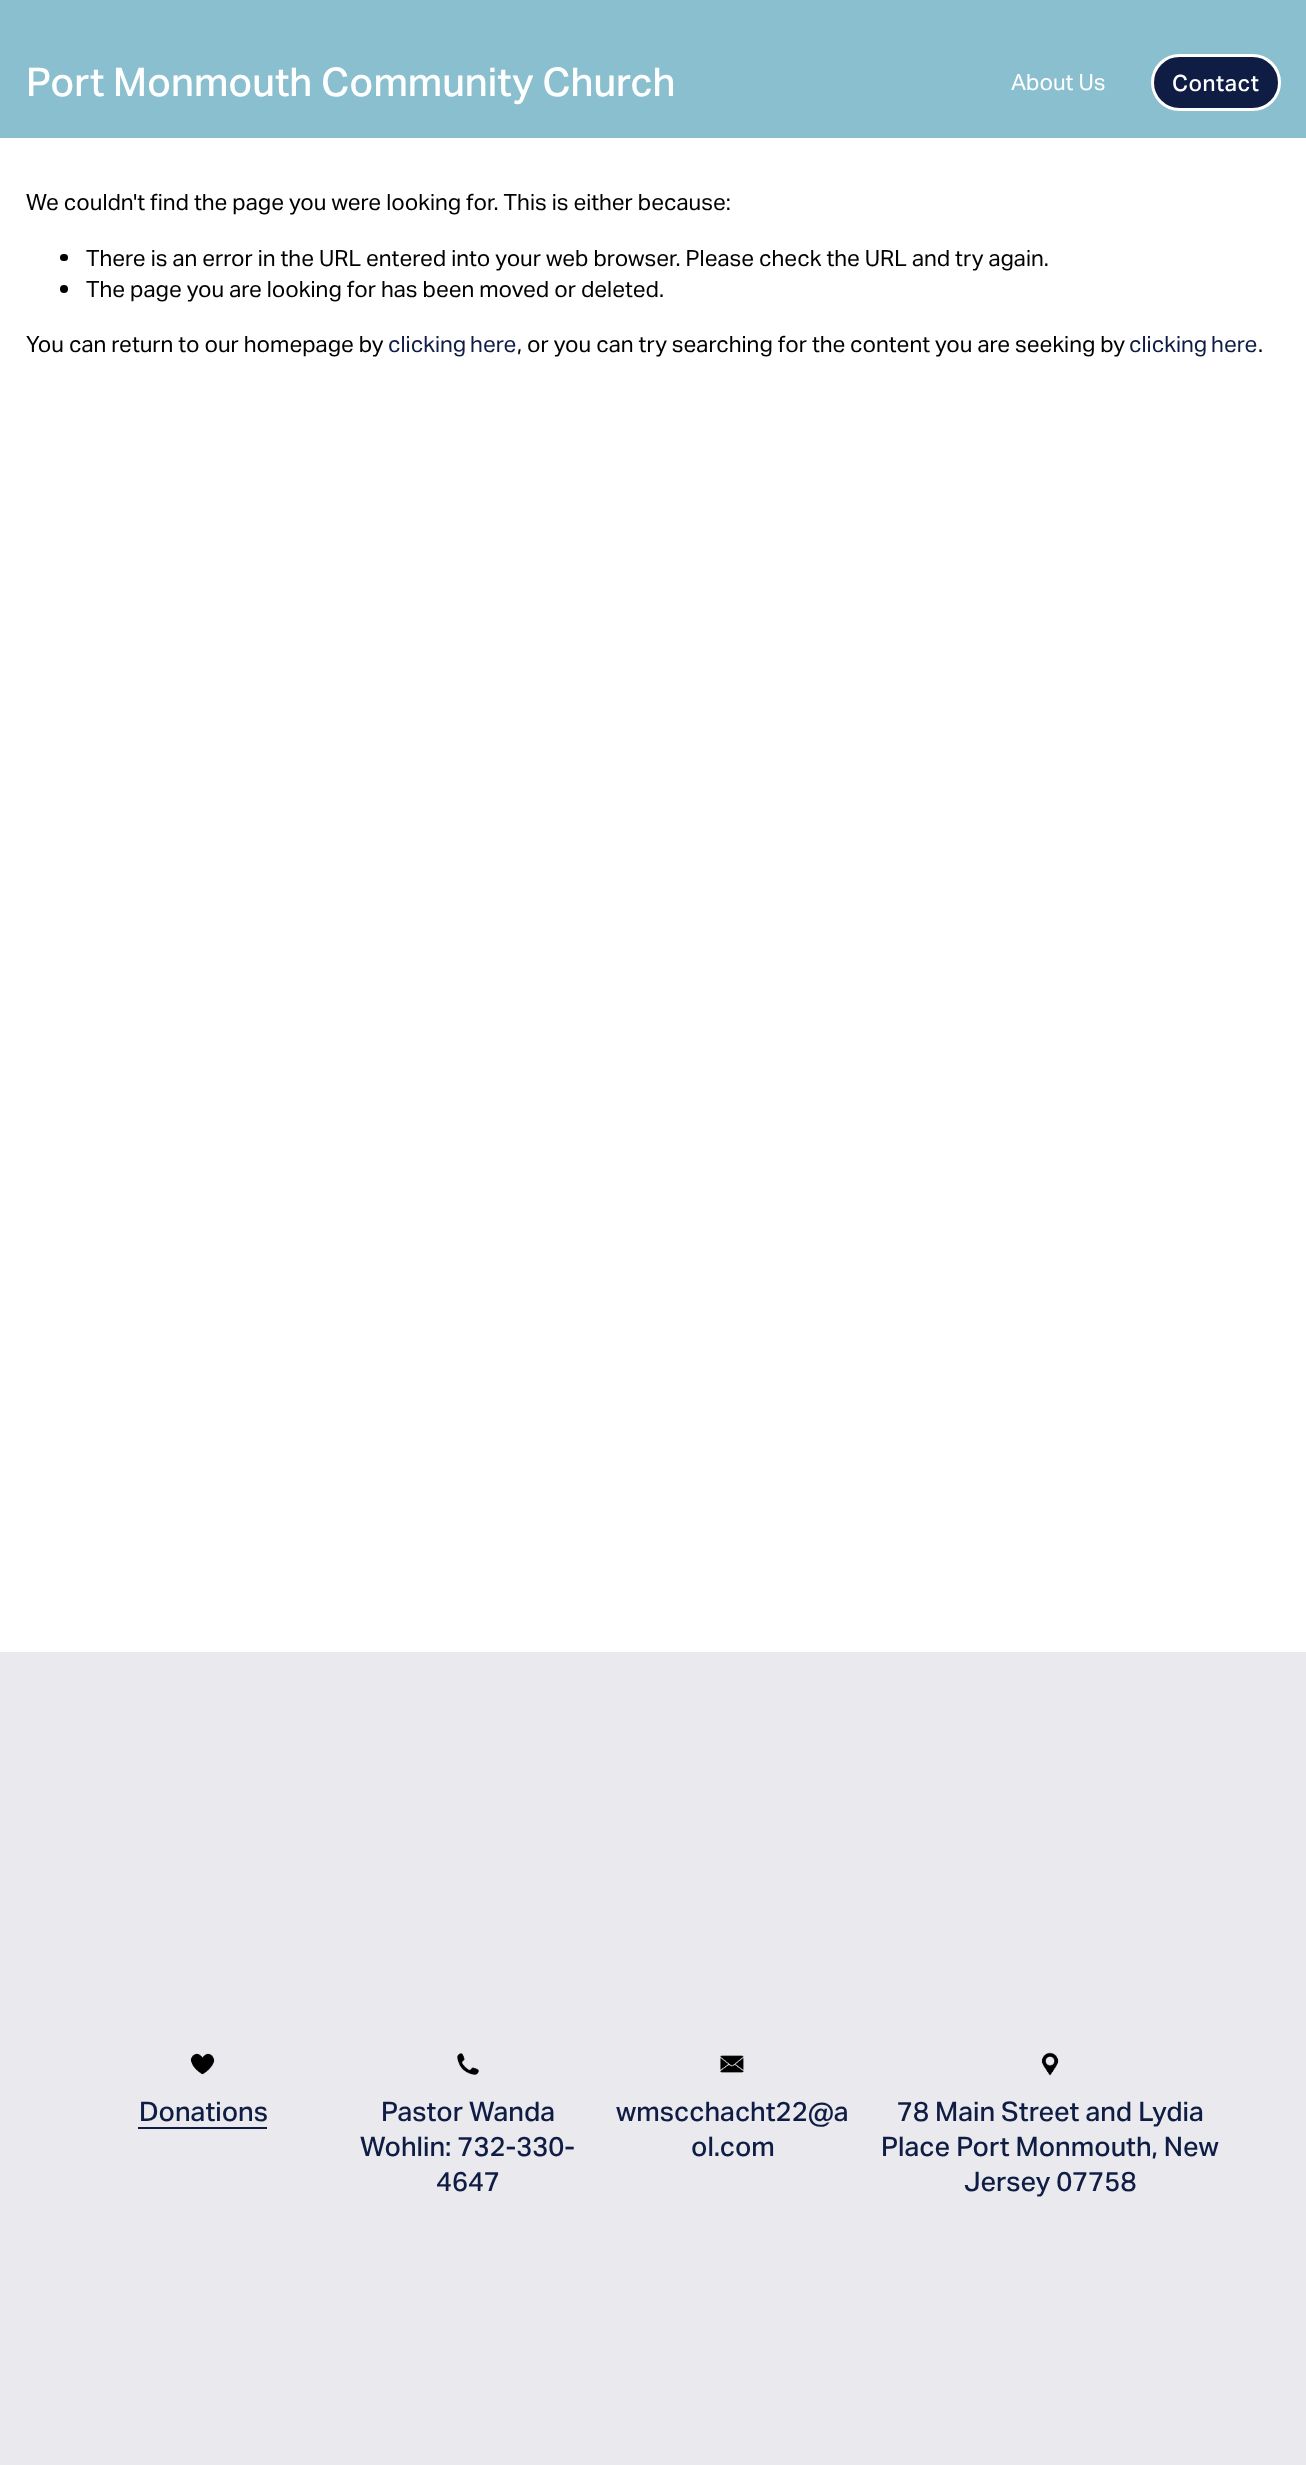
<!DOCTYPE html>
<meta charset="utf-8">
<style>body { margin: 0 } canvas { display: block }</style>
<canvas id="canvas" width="1306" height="2465"></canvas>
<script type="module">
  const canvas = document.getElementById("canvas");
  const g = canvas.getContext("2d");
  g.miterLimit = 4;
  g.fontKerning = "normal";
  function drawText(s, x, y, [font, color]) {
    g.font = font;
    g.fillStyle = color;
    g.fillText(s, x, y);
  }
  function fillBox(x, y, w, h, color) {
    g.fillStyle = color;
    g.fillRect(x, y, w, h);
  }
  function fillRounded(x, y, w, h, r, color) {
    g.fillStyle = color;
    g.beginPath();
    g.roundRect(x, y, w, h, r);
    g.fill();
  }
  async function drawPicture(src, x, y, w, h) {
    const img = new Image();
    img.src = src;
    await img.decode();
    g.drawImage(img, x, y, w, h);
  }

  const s1 = ["500 39.7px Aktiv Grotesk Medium", "#FFFFFF"];
  const s2 = ["22.45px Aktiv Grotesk", "#FFFFFF"];
  const s3 = ["500 22.45px Aktiv Grotesk Medium", "#FFFFFF"];
  const s4 = ["22.45px Aktiv Grotesk", "#000000"];
  const s5 = ["22.45px Aktiv Grotesk", "#0F1C44"];
  const s6 = ["500 27.1px Aktiv Grotesk Medium", "#0F1C44"];

  fillBox(0, 0, 1306, 2465, "#FFFFFF");
  fillBox(0, 0, 1306, 138, "#8ABFCF");
  drawText("Port Monmouth Community Church", 26, 96, s1);
  drawText("About Us", 1011, 90, s2);
  g.fillStyle = "#0F1C44";
  g.beginPath();
  g.roundRect(1152.5, 55.5, 127, 54, 27);
  g.fill();
  g.strokeStyle = "#FFFFFF";
  g.lineWidth = 3;
  g.stroke();
  g.letterSpacing = "0.5px";
  drawText("Contact", 1172, 91, s3);
  g.letterSpacing = "0px";
  drawText("We couldn't find the page you were looking for. This is either because:", 26, 210, s4);
  fillRounded(60, 254, 8, 7, 3.5, "#000000");
  drawText("There is an error in the URL entered into your web browser. Please check the URL and try again.", 86, 266, s4);
  g.beginPath();
  g.arc(64, 289, 4, 0, Math.PI * 2);
  g.fill();
  drawText("The page you are looking for has been moved or deleted.", 86, 297, s4);
  drawText("You can return to our homepage by", 26, 352, s4);
  g.wordSpacing = "-1px";
  drawText("clicking here", 388, 352, s5);
  g.wordSpacing = "0px";
  drawText(", or you can try searching for the", 517, 352, s4);
  drawText("content you are seeking by", 850, 352, s4);
  g.wordSpacing = "-1px";
  drawText("clicking here", 1129, 352, s5);
  g.wordSpacing = "0px";
  drawText(".", 1258, 352, s4);
  fillBox(0, 1652, 1306, 813, "#EAEAEE");
  await drawPicture("pic1.png", 190, 2053, 25, 22);
  await drawPicture("pic2.png", 457, 2053, 22, 22);
  await drawPicture("pic3.png", 720, 2055, 24, 18);
  await drawPicture("pic4.png", 1041, 2052, 18, 24);
  fillBox(138, 2127, 129, 2, "#0F1C44");
  drawText("Donations", 139, 2121, s6);
  drawText("Pastor Wanda", 381, 2121, s6);
  drawText("Wohlin: 732-330-", 360, 2156, s6);
  drawText("4647", 436, 2191, s6);
  drawText("wmscchacht22@a", 616, 2121, s6);
  drawText("ol.com", 691, 2156, s6);
  drawText("78 Main Street and Lydia", 897, 2121, s6);
  drawText("Place Port Monmouth, New", 881, 2156, s6);
  drawText("Jersey 07758", 964, 2191, s6);
</script>
